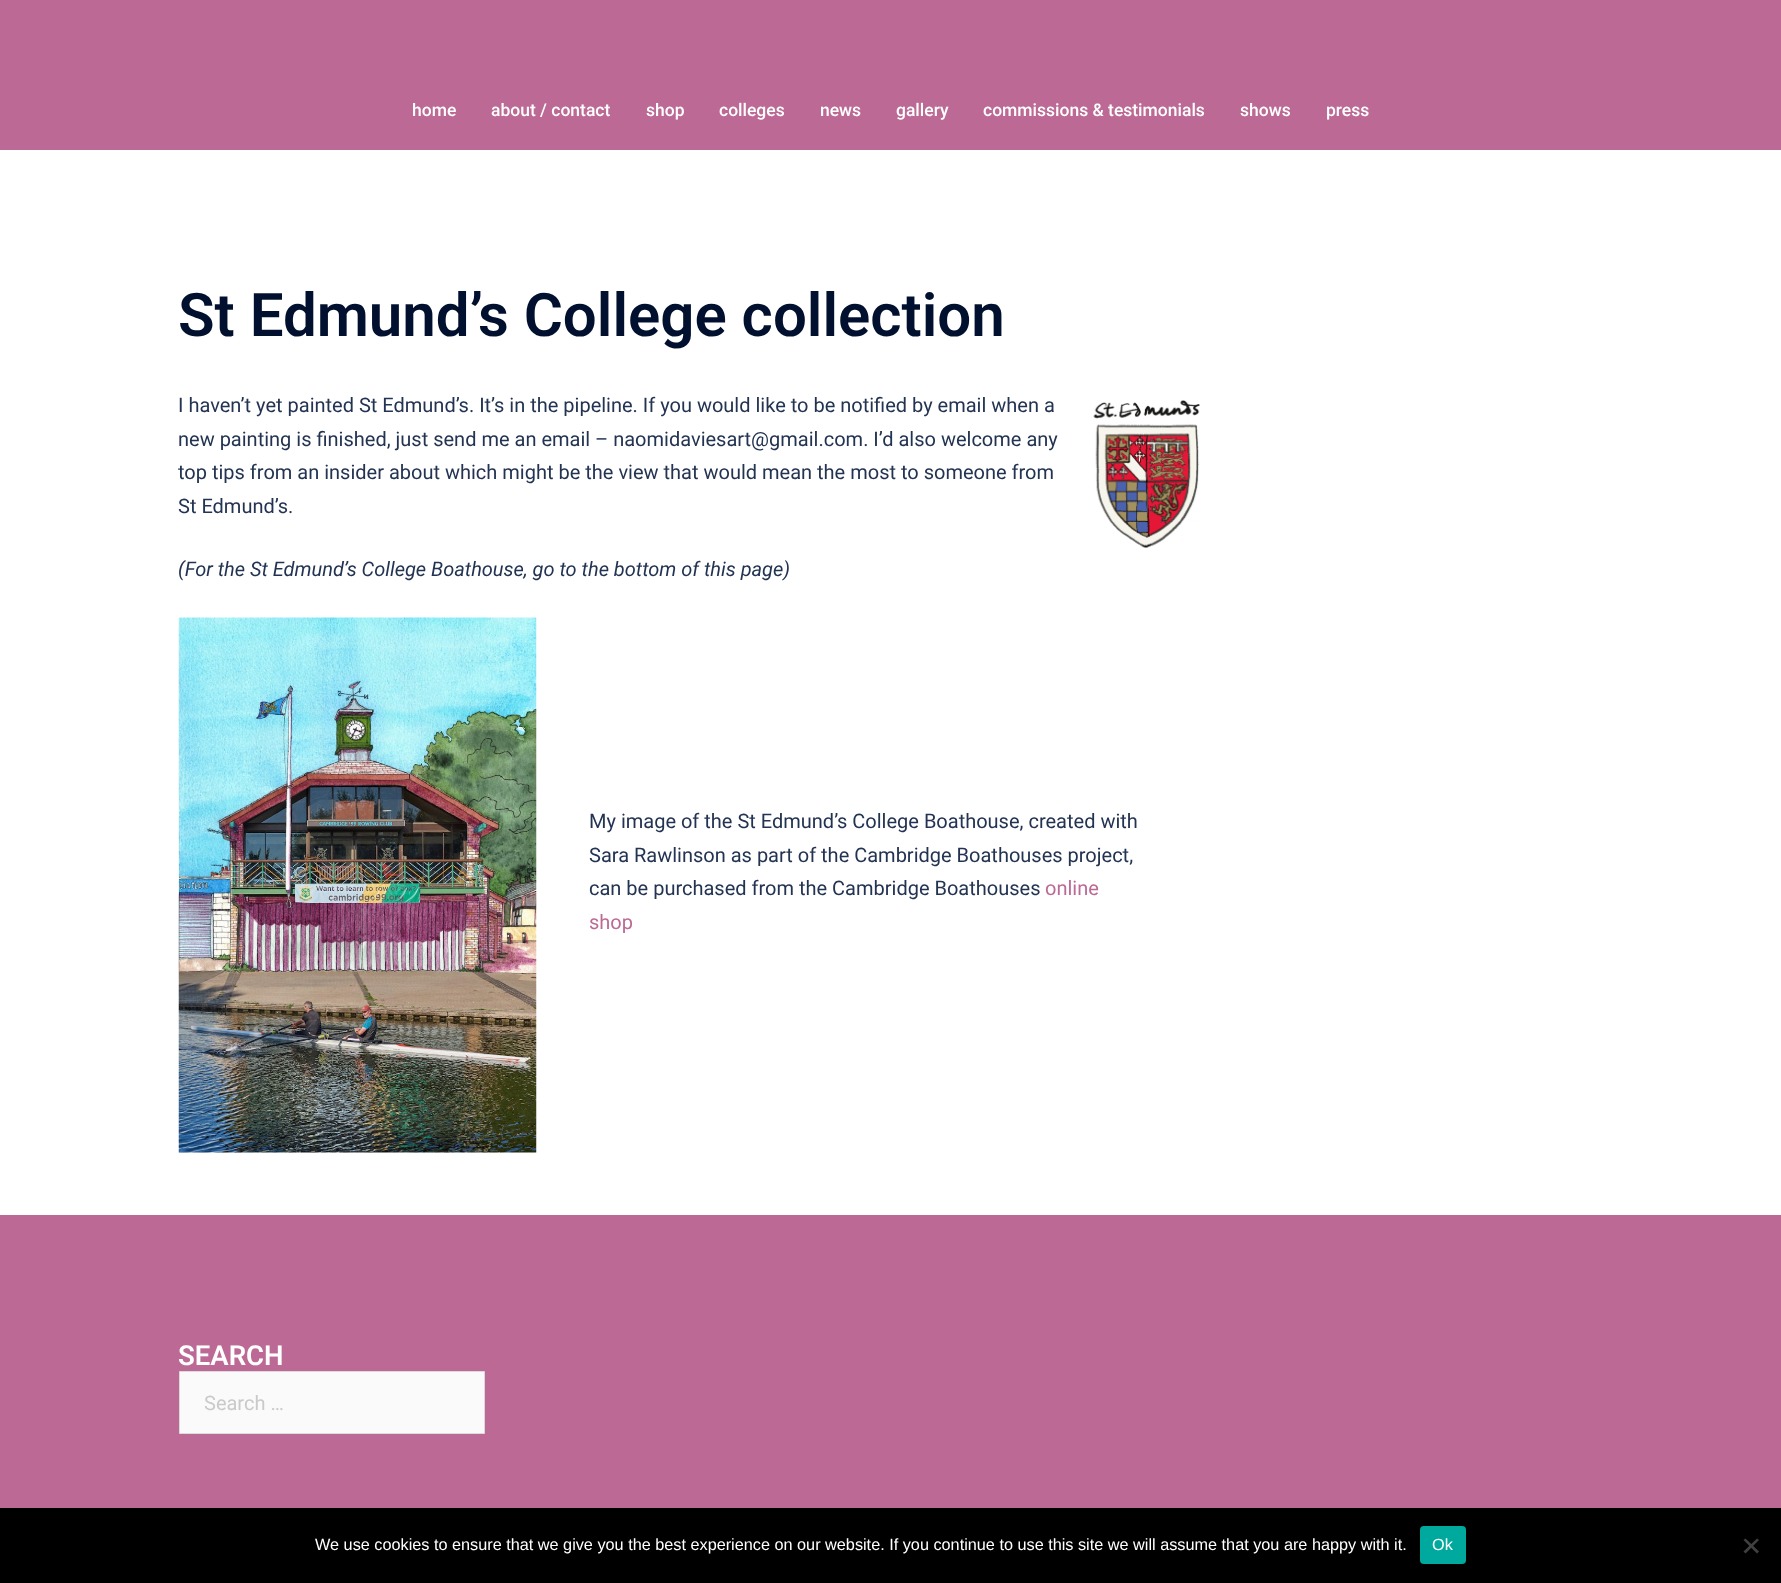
<!DOCTYPE html>
<meta charset="utf-8">
<style>body { margin: 0 } canvas { display: block }</style>
<canvas id="canvas" width="1781" height="1583"></canvas>
<script type="module">
  const canvas = document.getElementById("canvas");
  const g = canvas.getContext("2d");
  g.miterLimit = 4;
  g.fontKerning = "normal";
  function drawText(s, x, y, [font, color]) {
    g.font = font;
    g.fillStyle = color;
    g.fillText(s, x, y);
  }
  function fillBox(x, y, w, h, color) {
    g.fillStyle = color;
    g.fillRect(x, y, w, h);
  }
  function fillRounded(x, y, w, h, r, color) {
    g.fillStyle = color;
    g.beginPath();
    g.roundRect(x, y, w, h, r);
    g.fill();
  }
  async function drawPicture(src, x, y, w, h) {
    const img = new Image();
    img.src = src;
    await img.decode();
    g.drawImage(img, x, y, w, h);
  }

  const s1 = ["500 17.5px Roboto", "#FFFFFF"];
  const s2 = ["600 60px Roboto", "#00102E"];
  const s3 = ["20px Roboto", "#233452"];
  const s4 = ["italic 20px Roboto", "#233452"];
  const s5 = ["20px Roboto", "#BC6A95"];
  const s6 = ["600 27.5px Roboto", "#FFFFFF"];
  const s7 = ["20px Roboto", "#CACACA"];
  const s8 = ["16.25px Liberation Sans", "#FFFFFF"];

  fillBox(0, 0, 1781, 1583, "#FFFFFF");
  fillBox(0, 0, 1781, 150, "#BC6A95");
  drawText("home", 412, 116, s1);
  drawText("about / contact", 491, 116, s1);
  drawText("shop", 646, 116, s1);
  drawText("colleges", 719, 116, s1);
  drawText("news", 820, 116, s1);
  drawText("gallery", 896, 116, s1);
  drawText("commissions & testimonials", 983, 116, s1);
  drawText("shows", 1240, 116, s1);
  drawText("press", 1326, 116, s1);
  drawText("St Edmund’s College collection", 178, 336, s2);
  drawText("I haven’t yet painted St Edmund’s. It’s in the pipeline. If you would like to be notified by email when a", 178, 412, s3);
  drawText("new painting is finished, just send me an email – naomidaviesart@gmail.com. I’d also welcome any", 178, 446, s3);
  drawText("top tips from an insider about which might be the view that would mean the most to someone from", 178, 479, s3);
  drawText("St Edmund’s.", 178, 513, s3);
  await drawPicture("pic1.png", 1093, 400, 107, 148);
  drawText("(For the St Edmund’s College Boathouse, go to the bottom of this page)", 178, 576, s4);
  await drawPicture("pic2.png", 178, 617, 359, 536);
  drawText("My image of the St Edmund’s College Boathouse, created with", 589, 828, s3);
  drawText("Sara Rawlinson as part of the Cambridge Boathouses project,", 589, 862, s3);
  drawText("can be purchased from the Cambridge Boathouses", 589, 895, s3);
  drawText("online", 1045, 895, s5);
  drawText("shop", 589, 929, s5);
  fillBox(0, 1215, 1781, 293, "#BC6A95");
  drawText("SEARCH", 178, 1365, s6);
  g.fillStyle = "#FAFAFA";
  g.beginPath();
  g.rect(179.5, 1371.5, 305, 62);
  g.fill();
  g.strokeStyle = "#DBDBDB";
  g.stroke();
  drawText("Search …", 204, 1410, s7);
  fillBox(0, 1508, 1781, 75, "#000000");
  drawText("We use cookies to ensure that we give you the best experience on our website. If you continue to use this site we will assume that you are happy with it.", 315, 1550, s8);
  fillRounded(1420, 1526, 46, 38, 4, "#00A99D");
  drawText("Ok", 1432, 1550, s8);
  g.fillStyle = "#404040";
  g.beginPath();
  g.moveTo(1757, 1538.5);
  g.lineTo(1759, 1540);
  g.lineTo(1745.5, 1553.5);
  g.lineTo(1743.5, 1551.5);
  g.closePath();
  g.fill();
  g.beginPath();
  g.moveTo(1743.5, 1540);
  g.lineTo(1745.5, 1538.5);
  g.lineTo(1759, 1551.5);
  g.lineTo(1757, 1553.5);
  g.closePath();
  g.fill();
</script>
